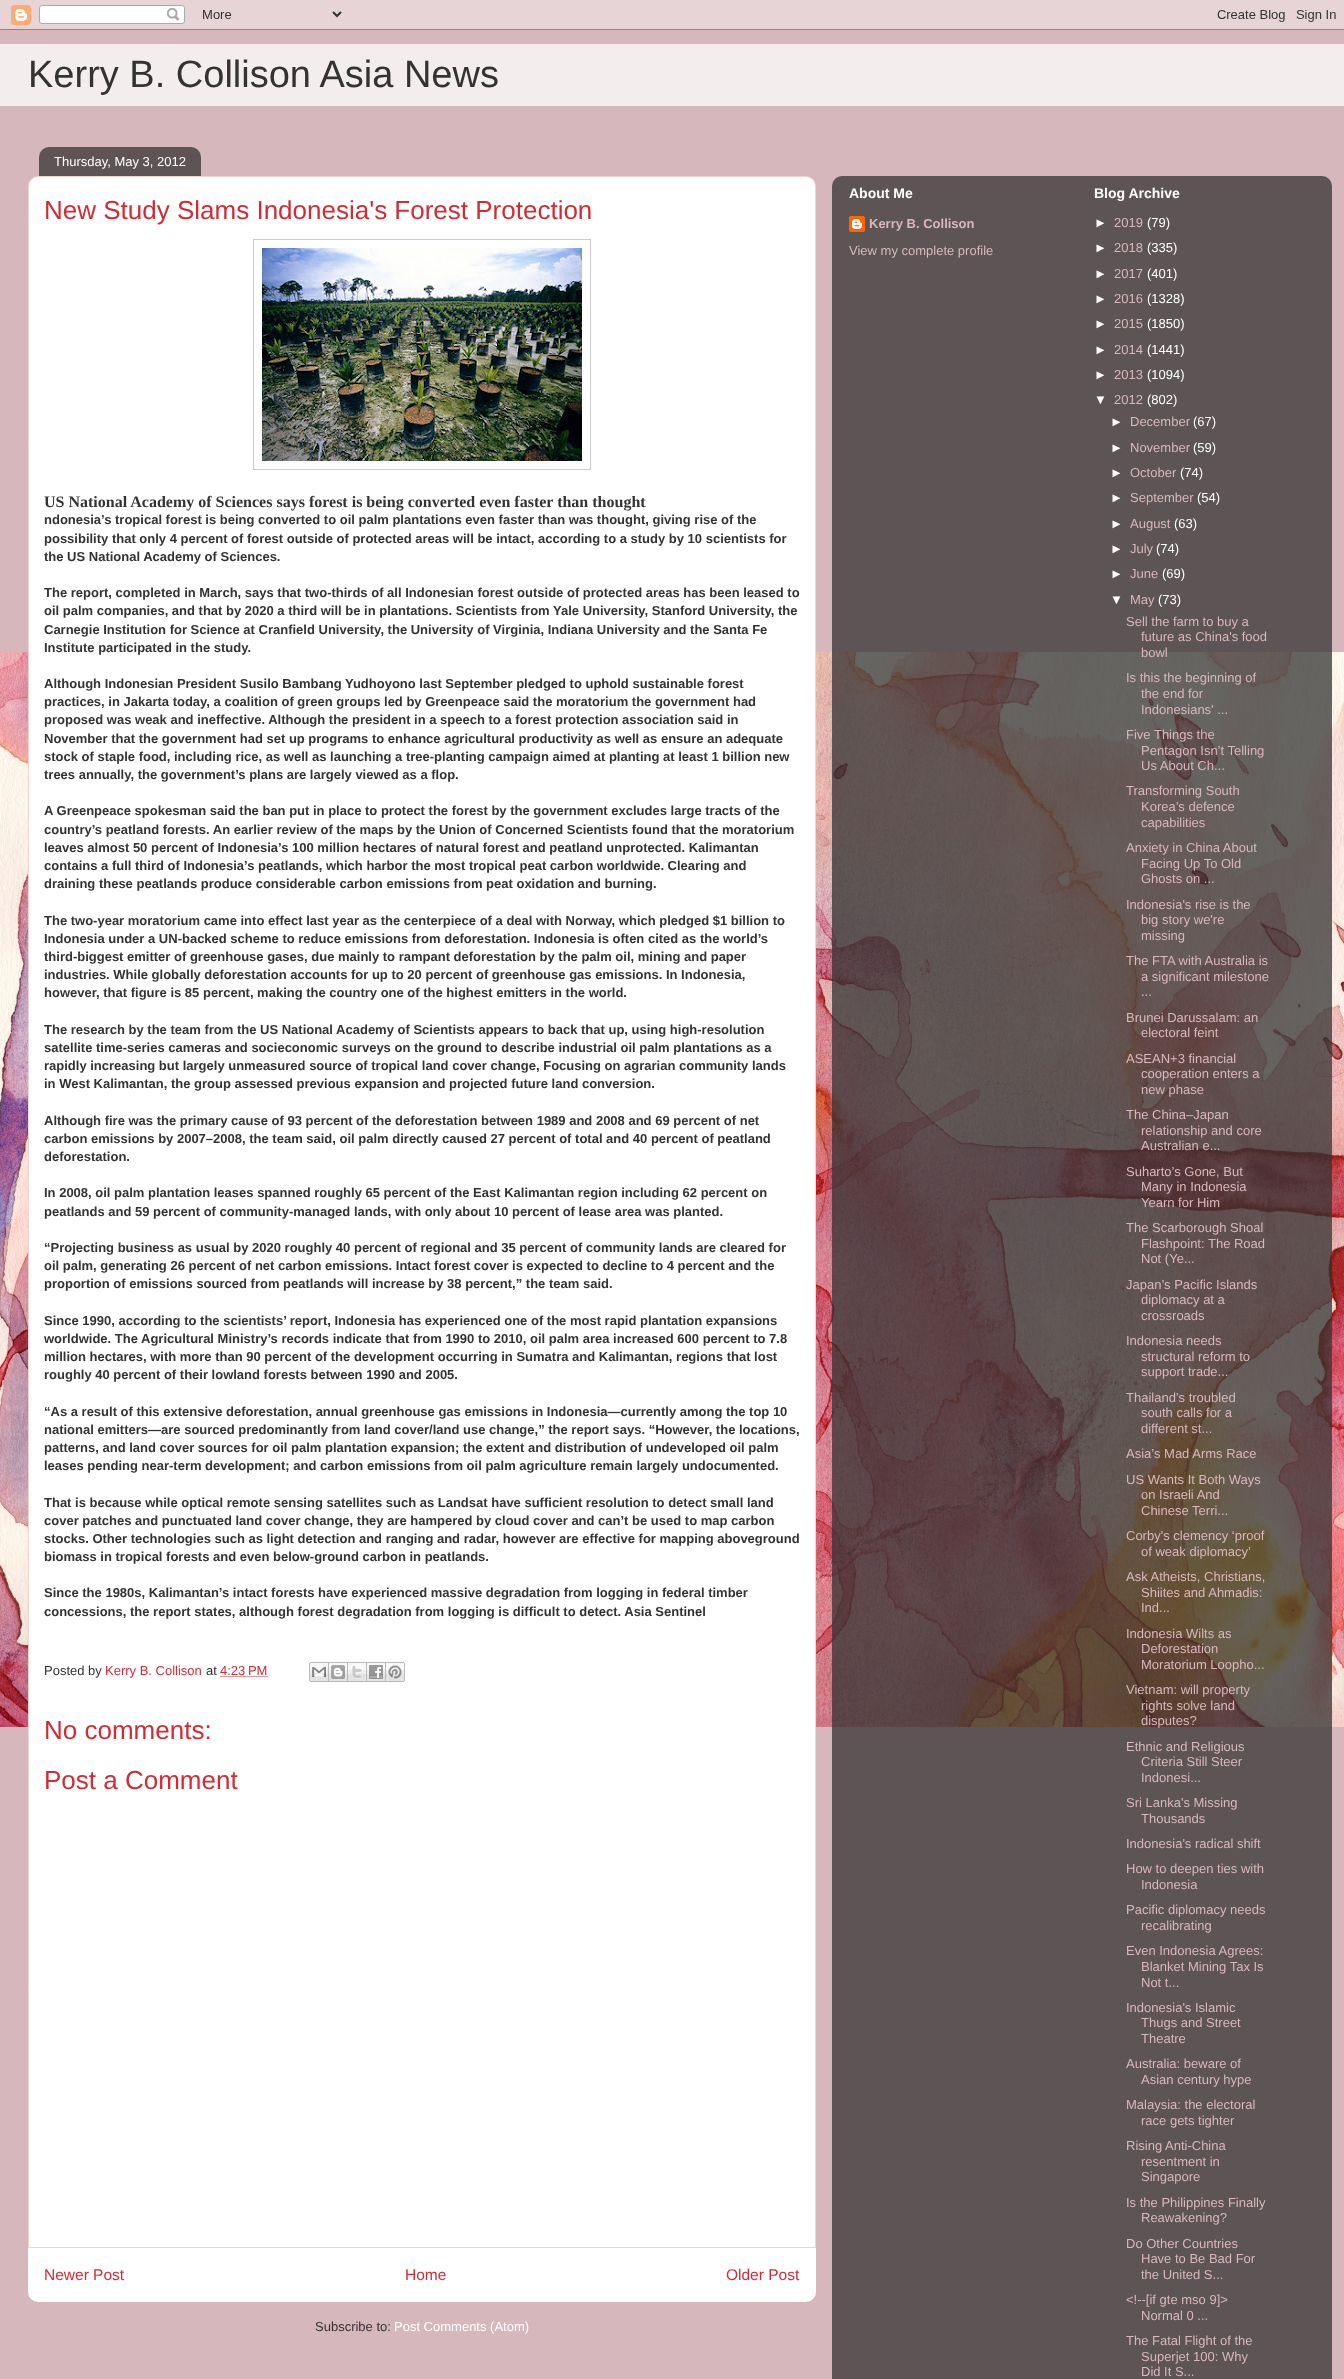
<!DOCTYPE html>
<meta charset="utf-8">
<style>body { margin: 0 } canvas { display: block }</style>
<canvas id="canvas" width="1344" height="2379"></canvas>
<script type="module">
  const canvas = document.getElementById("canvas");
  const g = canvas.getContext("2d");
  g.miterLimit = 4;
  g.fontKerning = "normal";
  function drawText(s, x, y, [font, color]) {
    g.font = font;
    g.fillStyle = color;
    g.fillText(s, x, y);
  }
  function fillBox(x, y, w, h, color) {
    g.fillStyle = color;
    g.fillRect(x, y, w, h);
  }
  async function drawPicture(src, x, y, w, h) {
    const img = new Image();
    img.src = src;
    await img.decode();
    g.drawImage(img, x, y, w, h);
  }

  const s1 = ["38px Liberation Sans", "#333333"];
  const s2 = ["13px Liberation Sans", "#FFFFFF"];
  const s3 = ["26px Liberation Sans", "#D52A33"];
  const s4 = ["bold 16px Liberation Serif", "#333333"];
  const s5 = ["bold 13px Liberation Sans", "#333333"];
  const s6 = ["13px Liberation Sans", "#333333"];
  const s7 = ["13px Liberation Sans", "#D52A33"];
  const s8 = ["15.5px Liberation Sans", "#D52A33"];
  const s9 = ["bold 14px Liberation Sans", "#FFFFFF"];
  const s10 = ["bold 13px Liberation Sans", "#DAB7BC"];
  const s11 = ["13px Liberation Sans", "#DAB7BC"];

  fillBox(0, 0, 1344, 2379, "#D5B7BC");
  await drawPicture("pic1.png", 0, 652, 1344, 1075);
  await drawPicture("pic2.png", 0, 0, 1344, 30);
  fillBox(0, 44, 1344, 62, "#F4EDEE");
  drawText("Kerry B. Collison Asia News", 28, 87, s1);
  g.fillStyle = "#FFFFFF";
  g.beginPath();
  g.roundRect(28.5, 176.5, 787, 2071, [9.5, 9.5, 0, 0]);
  g.fill();
  g.strokeStyle = "#F4D3CC";
  g.stroke();
  await drawPicture("pic3.png", 39, 147, 162, 29);
  drawText("Thursday, May 3, 2012", 54, 166, s2);
  drawText("New Study Slams Indonesia's Forest Protection", 44, 219, s3);
  g.strokeStyle = "#CCCCCC";
  g.strokeRect(253.5, 239.5, 337, 230);
  await drawPicture("pic4.png", 262, 248, 320, 213);
  drawText("US National Academy of Sciences says forest is being converted even faster than thought", 44, 507, s4);
  drawText("ndonesia’s tropical forest is being converted to oil palm plantations even faster than was thought, giving rise of the", 44, 524, s5);
  drawText("possibility that only 4 percent of forest outside of protected areas will be intact, according to a study by 10 scientists for", 44, 543, s5);
  drawText("the US National Academy of Sciences.", 44, 561, s5);
  drawText("The report, completed in March, says that two-thirds of all Indonesian forest outside of protected areas has been leased to", 44, 597, s5);
  drawText("oil palm companies, and that by 2020 a third will be in plantations. Scientists from Yale University, Stanford University, the", 44, 615, s5);
  drawText("Carnegie Institution for Science at Cranfield University, the University of Virginia, Indiana University and the Santa Fe", 44, 634, s5);
  drawText("Institute participated in the study.", 44, 652, s5);
  drawText("Although Indonesian President Susilo Bambang Yudhoyono last September pledged to uphold sustainable forest", 44, 688, s5);
  drawText("practices, in Jakarta today, a coalition of green groups led by Greenpeace said the moratorium the government had", 44, 706, s5);
  drawText("proposed was weak and ineffective. Although the president in a speech to a forest protection association said in", 44, 724, s5);
  drawText("November that the government had set up programs to enhance agricultural productivity as well as ensure an adequate", 44, 743, s5);
  drawText("stock of staple food, including rice, as well as launching a tree-planting campaign aimed at planting at least 1 billion new", 44, 761, s5);
  drawText("trees annually, the government’s plans are largely viewed as a flop.", 44, 779, s5);
  drawText("A Greenpeace spokesman said the ban put in place to protect the forest by the government excludes large tracts of the", 44, 815, s5);
  drawText("country’s peatland forests. An earlier review of the maps by the Union of Concerned Scientists found that the moratorium", 44, 834, s5);
  drawText("leaves almost 50 percent of Indonesia’s 100 million hectares of natural forest and peatland unprotected. Kalimantan", 44, 852, s5);
  drawText("contains a full third of Indonesia’s peatlands, which harbor the most tropical peat carbon worldwide. Clearing and", 44, 870, s5);
  drawText("draining these peatlands produce considerable carbon emissions from peat oxidation and burning.", 44, 888, s5);
  drawText("The two-year moratorium came into effect last year as the centerpiece of a deal with Norway, which pledged $1 billion to", 44, 925, s5);
  drawText("Indonesia under a UN-backed scheme to reduce emissions from deforestation. Indonesia is often cited as the world’s", 44, 943, s5);
  drawText("third-biggest emitter of greenhouse gases, due mainly to rampant deforestation by the palm oil, mining and paper", 44, 961, s5);
  drawText("industries. While globally deforestation accounts for up to 20 percent of greenhouse gas emissions. In Indonesia,", 44, 979, s5);
  drawText("however, that figure is 85 percent, making the country one of the highest emitters in the world.", 44, 997, s5);
  drawText("The research by the team from the US National Academy of Scientists appears to back that up, using high-resolution", 44, 1034, s5);
  drawText("satellite time-series cameras and socieconomic surveys on the ground to describe industrial oil palm plantations as a", 44, 1052, s5);
  drawText("rapidly increasing but largely unmeasured source of tropical land cover change, Focusing on agrarian community lands", 44, 1070, s5);
  drawText("in West Kalimantan, the group assessed previous expansion and projected future land conversion.", 44, 1088, s5);
  drawText("Although fire was the primary cause of 93 percent of the deforestation between 1989 and 2008 and 69 percent of net", 44, 1125, s5);
  drawText("carbon emissions by 2007–2008, the team said, oil palm directly caused 27 percent of total and 40 percent of peatland", 44, 1143, s5);
  drawText("deforestation.", 44, 1161, s5);
  drawText("In 2008, oil palm plantation leases spanned roughly 65 percent of the East Kalimantan region including 62 percent on", 44, 1197, s5);
  drawText("peatlands and 59 percent of community-managed lands, with only about 10 percent of lease area was planted.", 44, 1216, s5);
  drawText("“Projecting business as usual by 2020 roughly 40 percent of regional and 35 percent of community lands are cleared for", 44, 1252, s5);
  drawText("oil palm, generating 26 percent of net carbon emissions. Intact forest cover is expected to decline to 4 percent and the", 44, 1270, s5);
  drawText("proportion of emissions sourced from peatlands will increase by 38 percent,” the team said.", 44, 1288, s5);
  drawText("Since 1990, according to the scientists’ report, Indonesia has experienced one of the most rapid plantation expansions", 44, 1325, s5);
  drawText("worldwide. The Agricultural Ministry’s records indicate that from 1990 to 2010, oil palm area increased 600 percent to 7.8", 44, 1343, s5);
  drawText("million hectares, with more than 90 percent of the development occurring in Sumatra and Kalimantan, regions that lost", 44, 1361, s5);
  drawText("roughly 40 percent of their lowland forests between 1990 and 2005.", 44, 1379, s5);
  drawText("“As a result of this extensive deforestation, annual greenhouse gas emissions in Indonesia—currently among the top 10", 44, 1416, s5);
  drawText("national emitters—are sourced predominantly from land cover/land use change,” the report says. “However, the locations,", 44, 1434, s5);
  drawText("patterns, and land cover sources for oil palm plantation expansion; the extent and distribution of undeveloped oil palm", 44, 1452, s5);
  drawText("leases pending near-term development; and carbon emissions from oil palm agriculture remain largely undocumented.", 44, 1470, s5);
  drawText("That is because while optical remote sensing satellites such as Landsat have sufficient resolution to detect small land", 44, 1507, s5);
  drawText("cover patches and punctuated land cover change, they are hampered by cloud cover and can’t be used to map carbon", 44, 1525, s5);
  drawText("stocks. Other technologies such as light detection and ranging and radar, however are effective for mapping aboveground", 44, 1543, s5);
  drawText("biomass in tropical forests and even below-ground carbon in peatlands.", 44, 1561, s5);
  drawText("Since the 1980s, Kalimantan’s intact forests have experienced massive degradation from logging in federal timber", 44, 1597, s5);
  drawText("concessions, the report states, although forest degradation from logging is difficult to detect. Asia Sentinel", 44, 1616, s5);
  drawText("Posted by", 44, 1675, s6);
  drawText("Kerry B. Collison", 105, 1675, s7);
  drawText("at", 206, 1675, s6);
  drawText("4:23 PM", 220, 1675, s7);
  g.beginPath();
  g.moveTo(220.5, 1676.5);
  g.lineTo(268, 1676.5);
  g.strokeStyle = "#D52A33";
  g.setLineDash([1, 1]);
  g.stroke();
  await drawPicture("pic5.png", 309, 1662, 20, 20);
  await drawPicture("pic6.png", 329, 1662, 19, 20);
  await drawPicture("pic7.png", 348, 1662, 19, 20);
  await drawPicture("pic8.png", 367, 1662, 19, 20);
  await drawPicture("pic9.png", 386, 1662, 19, 20);
  drawText("No comments:", 44, 1739, s3);
  drawText("Post a Comment", 44, 1789, s3);
  g.fillStyle = "#FFFFFF";
  g.beginPath();
  g.roundRect(28, 2248, 788, 54, [0, 0, 10, 10]);
  g.fill();
  drawText("Newer Post", 44, 2280, s8);
  drawText("Home", 405, 2280, s8);
  drawText("Older Post", 726, 2280, s8);
  drawText("Subscribe to:", 315, 2331, s6);
  drawText("Post Comments (Atom)", 394, 2331, s2);
  await drawPicture("pic10.png", 832, 176, 500, 2203);
  drawText("About Me", 849, 198, s9);
  await drawPicture("pic11.png", 849, 216, 16, 16);
  drawText("Kerry B. Collison", 869, 228, s10);
  drawText("View my complete profile", 849, 255, s11);
  drawText("Blog Archive", 1094, 198, s9);
  drawText("►", 1094, 227, s2);
  drawText("2019", 1114, 227, s11);
  drawText("(79)", 1147, 227, s2);
  drawText("►", 1094, 252, s2);
  drawText("2018", 1114, 252, s11);
  drawText("(335)", 1147, 252, s2);
  drawText("►", 1094, 278, s2);
  drawText("2017", 1114, 278, s11);
  drawText("(401)", 1147, 278, s2);
  drawText("►", 1094, 303, s2);
  drawText("2016", 1114, 303, s11);
  drawText("(1328)", 1147, 303, s2);
  drawText("►", 1094, 328, s2);
  drawText("2015", 1114, 328, s11);
  drawText("(1850)", 1147, 328, s2);
  drawText("►", 1094, 354, s2);
  drawText("2014", 1114, 354, s11);
  drawText("(1441)", 1147, 354, s2);
  drawText("►", 1094, 379, s2);
  drawText("2013", 1114, 379, s11);
  drawText("(1094)", 1147, 379, s2);
  drawText("▼", 1094, 404, s2);
  drawText("2012", 1114, 404, s11);
  drawText("(802)", 1147, 404, s2);
  drawText("►", 1110, 426, s2);
  drawText("December", 1130, 426, s11);
  drawText("(67)", 1193, 426, s2);
  drawText("►", 1110, 452, s2);
  drawText("November", 1130, 452, s11);
  drawText("(59)", 1193, 452, s2);
  drawText("►", 1110, 477, s2);
  drawText("October", 1130, 477, s11);
  drawText("(74)", 1180, 477, s2);
  drawText("►", 1110, 502, s2);
  drawText("September", 1130, 502, s11);
  drawText("(54)", 1197, 502, s2);
  drawText("►", 1110, 528, s2);
  drawText("August", 1130, 528, s11);
  drawText("(63)", 1174, 528, s2);
  drawText("►", 1110, 553, s2);
  drawText("July", 1130, 553, s11);
  drawText("(74)", 1156, 553, s2);
  drawText("►", 1110, 578, s2);
  drawText("June", 1130, 578, s11);
  drawText("(69)", 1162, 578, s2);
  drawText("▼", 1110, 604, s2);
  drawText("May", 1130, 604, s11);
  drawText("(73)", 1158, 604, s2);
  drawText("Sell the farm to buy a", 1126, 626, s11);
  drawText("future as China's food", 1141, 641, s11);
  drawText("bowl", 1141, 657, s11);
  drawText("Is this the beginning of", 1126, 682, s11);
  drawText("the end for", 1141, 698, s11);
  drawText("Indonesians' ...", 1141, 714, s11);
  drawText("Five Things the", 1126, 739, s11);
  drawText("Pentagon Isn’t Telling", 1141, 755, s11);
  drawText("Us About Ch...", 1141, 770, s11);
  drawText("Transforming South", 1126, 795, s11);
  drawText("Korea’s defence", 1141, 811, s11);
  drawText("capabilities", 1141, 827, s11);
  drawText("Anxiety in China About", 1126, 852, s11);
  drawText("Facing Up To Old", 1141, 868, s11);
  drawText("Ghosts on ...", 1141, 883, s11);
  drawText("Indonesia's rise is the", 1126, 909, s11);
  drawText("big story we're", 1141, 924, s11);
  drawText("missing", 1141, 940, s11);
  drawText("The FTA with Australia is", 1126, 965, s11);
  drawText("a significant milestone", 1141, 981, s11);
  drawText("...", 1141, 996, s11);
  drawText("Brunei Darussalam: an", 1126, 1022, s11);
  drawText("electoral feint", 1141, 1037, s11);
  drawText("ASEAN+3 financial", 1126, 1063, s11);
  drawText("cooperation enters a", 1141, 1078, s11);
  drawText("new phase", 1141, 1094, s11);
  drawText("The China–Japan", 1126, 1119, s11);
  drawText("relationship and core", 1141, 1135, s11);
  drawText("Australian e...", 1141, 1150, s11);
  drawText("Suharto’s Gone, But", 1126, 1176, s11);
  drawText("Many in Indonesia", 1141, 1191, s11);
  drawText("Yearn for Him", 1141, 1207, s11);
  drawText("The Scarborough Shoal", 1126, 1232, s11);
  drawText("Flashpoint: The Road", 1141, 1248, s11);
  drawText("Not (Ye...", 1141, 1263, s11);
  drawText("Japan’s Pacific Islands", 1126, 1289, s11);
  drawText("diplomacy at a", 1141, 1304, s11);
  drawText("crossroads", 1141, 1320, s11);
  drawText("Indonesia needs", 1126, 1345, s11);
  drawText("structural reform to", 1141, 1361, s11);
  drawText("support trade...", 1141, 1376, s11);
  drawText("Thailand’s troubled", 1126, 1402, s11);
  drawText("south calls for a", 1141, 1417, s11);
  drawText("different st...", 1141, 1433, s11);
  drawText("Asia’s Mad Arms Race", 1126, 1458, s11);
  drawText("US Wants It Both Ways", 1126, 1484, s11);
  drawText("on Israeli And", 1141, 1499, s11);
  drawText("Chinese Terri...", 1141, 1515, s11);
  drawText("Corby's clemency ‘proof", 1126, 1540, s11);
  drawText("of weak diplomacy’", 1141, 1556, s11);
  drawText("Ask Atheists, Christians,", 1126, 1581, s11);
  drawText("Shiites and Ahmadis:", 1141, 1597, s11);
  drawText("Ind...", 1141, 1612, s11);
  drawText("Indonesia Wilts as", 1126, 1638, s11);
  drawText("Deforestation", 1141, 1653, s11);
  drawText("Moratorium Loopho...", 1141, 1669, s11);
  drawText("Vietnam: will property", 1126, 1694, s11);
  drawText("rights solve land", 1141, 1710, s11);
  drawText("disputes?", 1141, 1725, s11);
  drawText("Ethnic and Religious", 1126, 1751, s11);
  drawText("Criteria Still Steer", 1141, 1766, s11);
  drawText("Indonesi...", 1141, 1782, s11);
  drawText("Sri Lanka's Missing", 1126, 1807, s11);
  drawText("Thousands", 1141, 1823, s11);
  drawText("Indonesia's radical shift", 1126, 1848, s11);
  drawText("How to deepen ties with", 1126, 1873, s11);
  drawText("Indonesia", 1141, 1889, s11);
  drawText("Pacific diplomacy needs", 1126, 1914, s11);
  drawText("recalibrating", 1141, 1930, s11);
  drawText("Even Indonesia Agrees:", 1126, 1955, s11);
  drawText("Blanket Mining Tax Is", 1141, 1971, s11);
  drawText("Not t...", 1141, 1987, s11);
  drawText("Indonesia's Islamic", 1126, 2012, s11);
  drawText("Thugs and Street", 1141, 2027, s11);
  drawText("Theatre", 1141, 2043, s11);
  drawText("Australia: beware of", 1126, 2068, s11);
  drawText("Asian century hype", 1141, 2084, s11);
  drawText("Malaysia: the electoral", 1126, 2109, s11);
  drawText("race gets tighter", 1141, 2125, s11);
  drawText("Rising Anti-China", 1126, 2150, s11);
  drawText("resentment in", 1141, 2166, s11);
  drawText("Singapore", 1141, 2181, s11);
  drawText("Is the Philippines Finally", 1126, 2207, s11);
  drawText("Reawakening?", 1141, 2222, s11);
  drawText("Do Other Countries", 1126, 2248, s11);
  drawText("Have to Be Bad For", 1141, 2263, s11);
  drawText("the United S...", 1141, 2279, s11);
  drawText("<\!--[if gte mso 9]>", 1126, 2304, s11);
  drawText("Normal 0 ...", 1141, 2320, s11);
  drawText("The Fatal Flight of the", 1126, 2345, s11);
  drawText("Superjet 100: Why", 1141, 2361, s11);
  drawText("Did It S...", 1141, 2376, s11);
</script>
